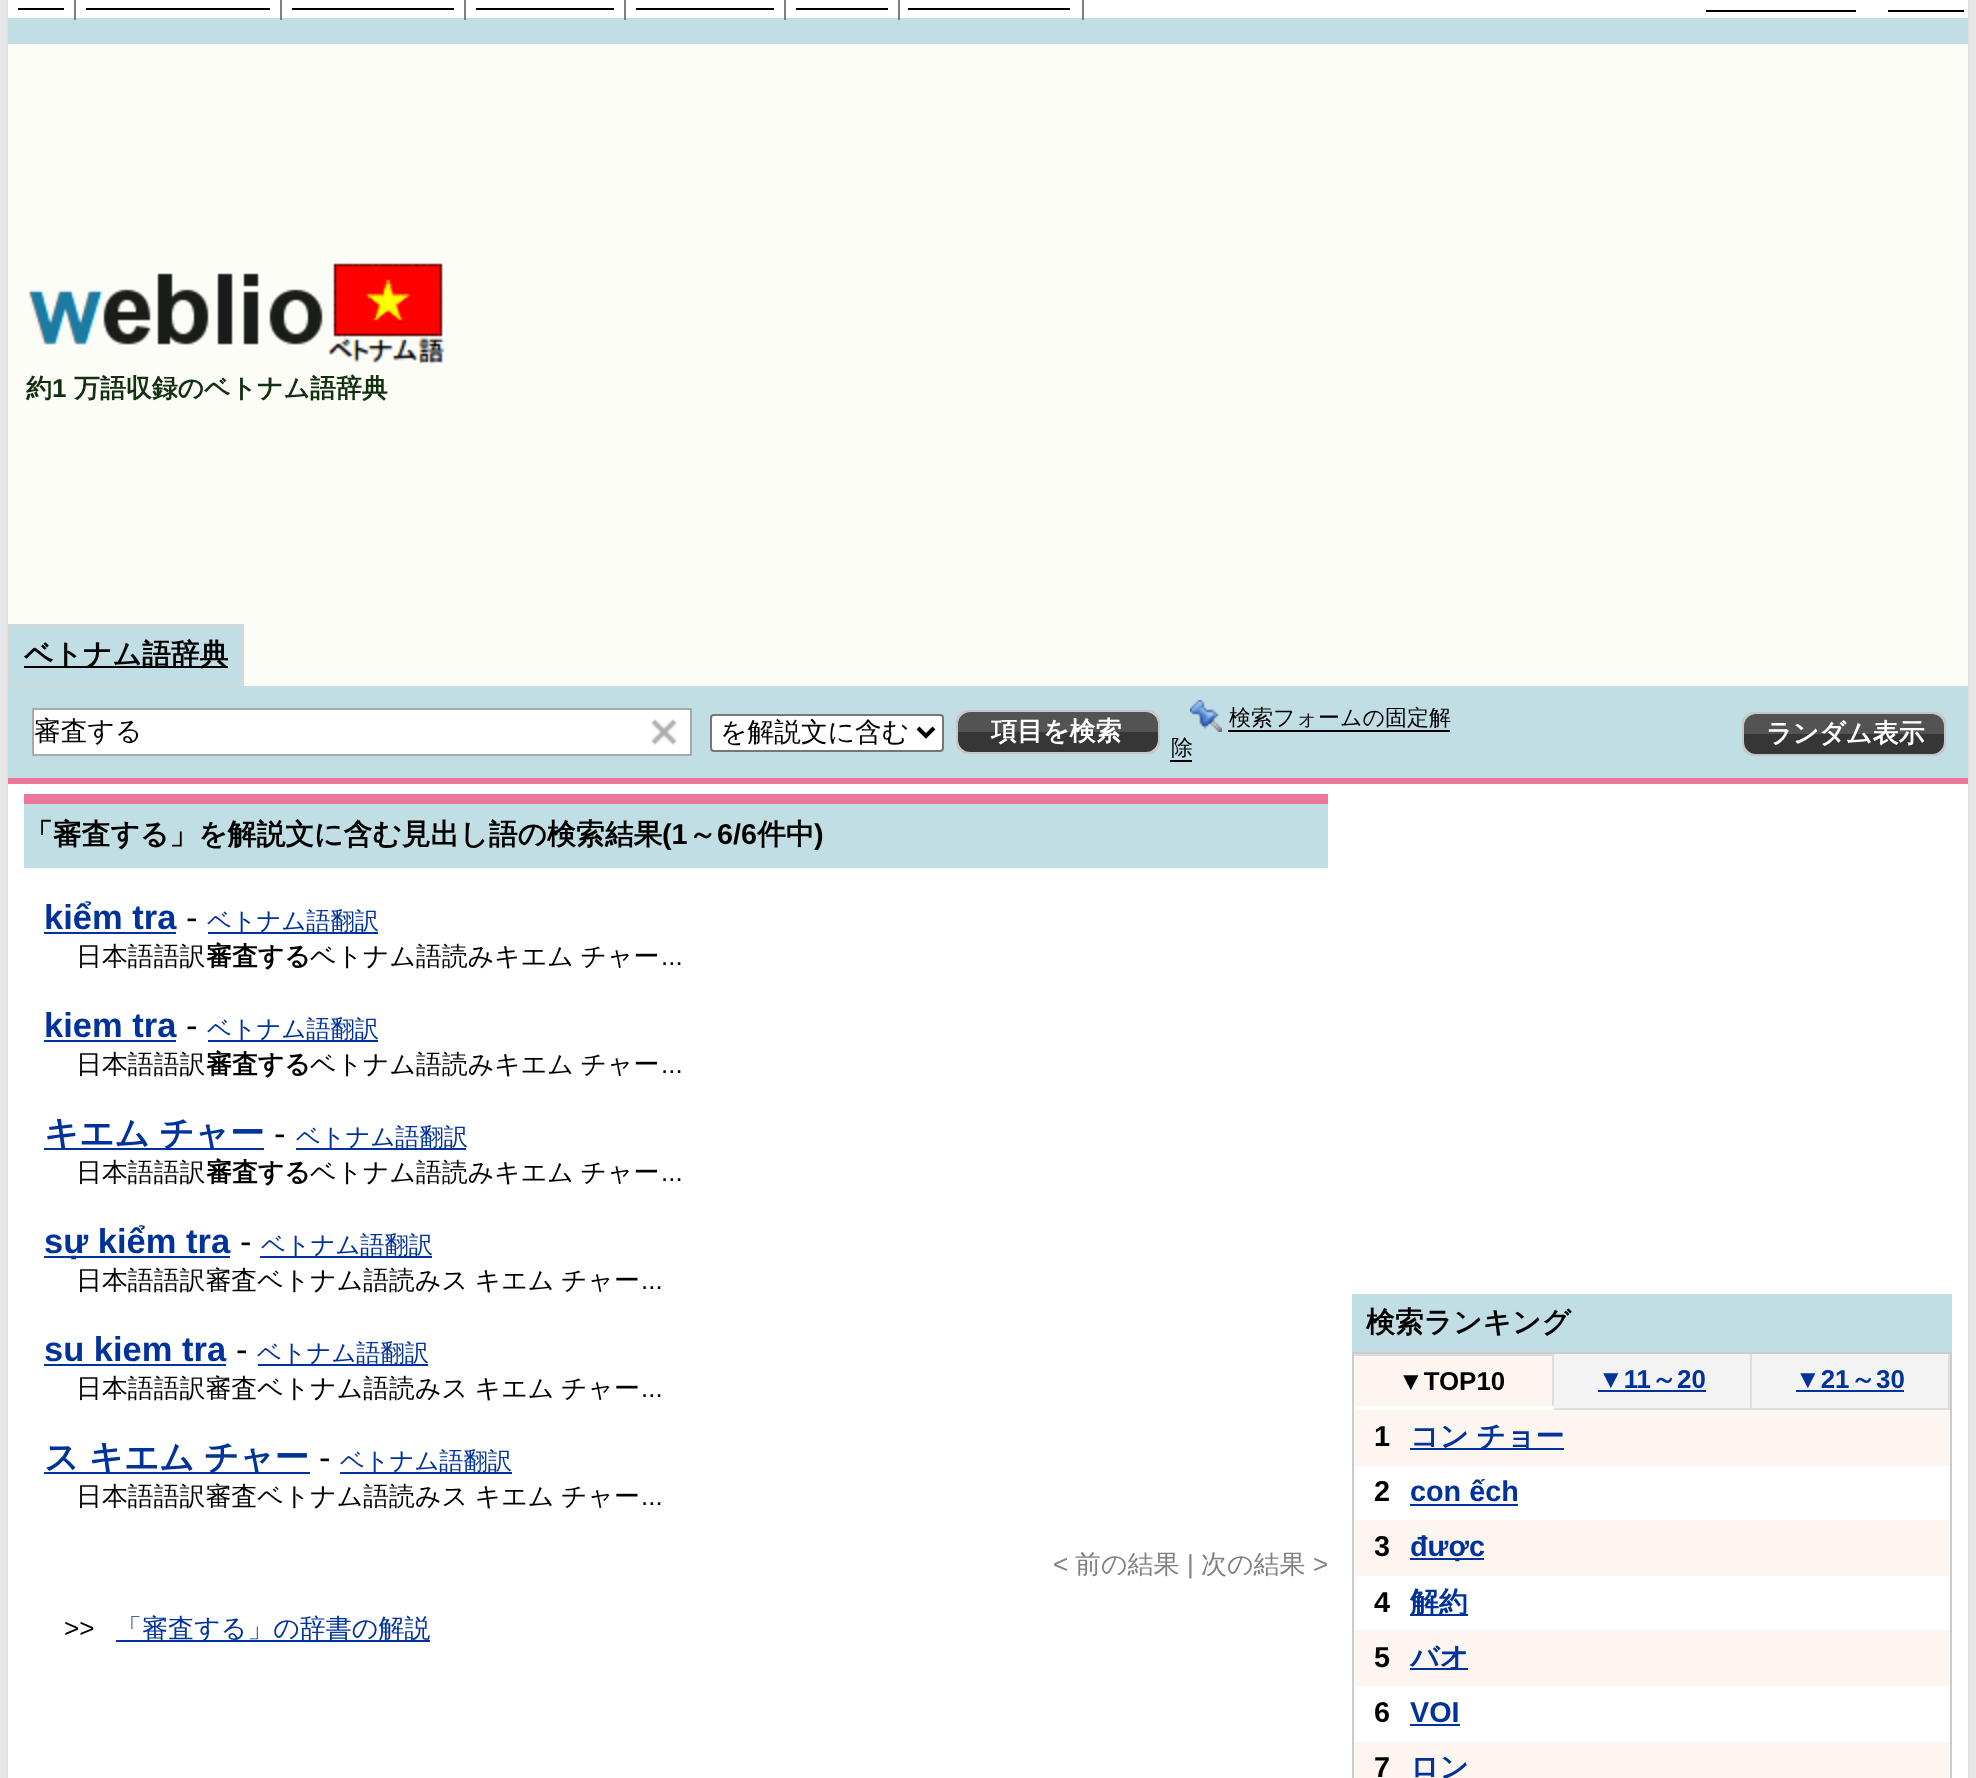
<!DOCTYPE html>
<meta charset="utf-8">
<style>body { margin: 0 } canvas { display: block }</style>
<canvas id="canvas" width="1976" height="1778"></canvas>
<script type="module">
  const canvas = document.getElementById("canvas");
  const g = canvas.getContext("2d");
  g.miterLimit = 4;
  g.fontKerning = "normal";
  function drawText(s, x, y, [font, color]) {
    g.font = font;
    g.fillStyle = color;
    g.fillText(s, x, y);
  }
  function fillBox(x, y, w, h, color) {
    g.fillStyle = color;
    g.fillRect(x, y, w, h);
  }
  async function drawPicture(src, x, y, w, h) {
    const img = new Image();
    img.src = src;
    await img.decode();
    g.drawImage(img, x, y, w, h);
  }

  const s1 = ["bold 25.9px WenQuanYi Zen Hei", "#103011"];
  const s2 = ["bold 25.9px Liberation Sans", "#103011"];
  const s3 = ["bold 28.8px WenQuanYi Zen Hei", "#000000"];
  const s4 = ["500 26.75px WenQuanYi Zen Hei", "#000000"];
  const s5 = ["bold 26px WenQuanYi Zen Hei", "#FFFFFF"];
  const s6 = ["500 22px WenQuanYi Zen Hei", "#000000"];
  const s7 = ["bold 28.8px Liberation Sans", "#000000"];
  const s8 = ["bold 34.5px Liberation Sans", "#00329B"];
  const s9 = ["34.5px Liberation Sans", "#000000"];
  const s10 = ["500 24.25px WenQuanYi Zen Hei", "#00329B"];
  const s11 = ["500 25.9px WenQuanYi Zen Hei", "#000000"];
  const s12 = ["bold 25.9px WenQuanYi Zen Hei", "#000000"];
  const s13 = ["25.9px Liberation Sans", "#000000"];
  const s14 = ["bold 34.5px WenQuanYi Zen Hei", "#00329B"];
  const s15 = ["26px Liberation Sans", "#808080"];
  const s16 = ["500 26px WenQuanYi Zen Hei", "#808080"];
  const s17 = ["26px Liberation Sans", "#000000"];
  const s18 = ["500 26px WenQuanYi Zen Hei", "#00329B"];
  const s19 = ["bold 25.9px Liberation Sans", "#000000"];
  const s20 = ["bold 25.9px Liberation Sans", "#00329B"];
  const s21 = ["bold 25.9px WenQuanYi Zen Hei", "#00329B"];
  const s22 = ["bold 28.8px WenQuanYi Zen Hei", "#00329B"];
  const s23 = ["bold 28.8px Liberation Sans", "#00329B"];

  fillBox(0, 0, 1976, 1778, "#E6E6E6");
  fillBox(8, 0, 1960, 1778, "#FFFFFF");
  fillBox(1968, 0, 2, 1778, "#E0E0E0");
  fillBox(6, 0, 2, 1778, "#E0E0E0");
  fillBox(8, 18, 1960, 26, "#C0DEE3");
  fillBox(74, 0, 2, 20, "#7F7F7F");
  fillBox(18, 8, 46, 2, "#000000");
  fillBox(280, 0, 2, 20, "#7F7F7F");
  fillBox(86, 8, 184, 2, "#000000");
  fillBox(464, 0, 2, 20, "#7F7F7F");
  fillBox(292, 8, 162, 2, "#000000");
  fillBox(624, 0, 2, 20, "#7F7F7F");
  fillBox(476, 8, 138, 2, "#000000");
  fillBox(784, 0, 2, 20, "#7F7F7F");
  fillBox(636, 8, 138, 2, "#000000");
  fillBox(898, 0, 2, 20, "#7F7F7F");
  fillBox(796, 8, 92, 2, "#000000");
  fillBox(1082, 0, 2, 20, "#7F7F7F");
  fillBox(908, 8, 162, 2, "#000000");
  fillBox(1706, 10, 150, 2, "#000000");
  fillBox(1888, 10, 76, 2, "#000000");
  fillBox(8, 44, 1960, 580, "#FDFDF7");
  await drawPicture("pic1.png", 27, 263, 418, 101);
  drawText("約", 26, 397, s1);
  drawText("1", 52, 397, s2);
  drawText("万語収録のベトナム語辞典", 74, 397, s1);
  fillBox(244, 624, 1724, 62, "#FDFDF7");
  g.fillStyle = "#C0DEE3";
  g.beginPath();
  g.rect(9, 625, 234, 60);
  g.fill();
  g.strokeStyle = "#D7D7D7";
  g.lineWidth = 2;
  g.stroke();
  fillBox(24, 666, 204, 2, "#000000");
  drawText("ベトナム語辞典", 24, 664, s3);
  fillBox(8, 686, 1960, 92, "#C0DEE3");
  fillBox(8, 778, 1960, 6, "#EC779B");
  fillBox(34, 710, 656, 44, "#FFFFFF");
  fillBox(32, 708, 660, 2, "#A9A9A9");
  fillBox(690, 708, 2, 48, "#A9A9A9");
  fillBox(32, 754, 660, 2, "#A9A9A9");
  fillBox(32, 708, 2, 48, "#A9A9A9");
  drawText("審査する", 34, 740, s4);
  await drawPicture("pic2.png", 651, 719, 26, 26);
  g.fillStyle = "#FFFFFF";
  g.beginPath();
  g.roundRect(711, 715, 232, 36, 3);
  g.fill();
  g.strokeStyle = "#767676";
  g.stroke();
  g.beginPath();
  g.moveTo(918, 728);
  g.lineTo(926, 736);
  g.lineTo(934, 728);
  g.strokeStyle = "#000000";
  g.lineWidth = 4;
  g.stroke();
  drawText("を解説文に含む", 720, 741, s4);
  g.fillStyle = "#E8E8E8";
  g.beginPath();
  g.roundRect(957, 711, 202, 42, 11);
  g.fill();
  g.strokeStyle = "#C5C5C5";
  g.lineWidth = 2;
  g.stroke();
  g.fillStyle = "#535353";
  g.beginPath();
  g.roundRect(958, 712, 200, 20, [12, 12, 0, 0]);
  g.fill();
  g.fillStyle = "#363636";
  g.beginPath();
  g.roundRect(958, 732, 200, 20, [0, 0, 12, 12]);
  g.fill();
  drawText("項目を検索", 991, 740, s5);
  await drawPicture("pic3.png", 1190, 700, 32, 32);
  drawText("検索フォームの固定解", 1229, 725, s6);
  fillBox(1228, 730, 222, 2, "#000000");
  drawText("除", 1171, 755, s6);
  fillBox(1170, 760, 22, 2, "#000000");
  g.beginPath();
  g.roundRect(1743, 713, 202, 42, 11);
  g.stroke();
  g.fillStyle = "#535353";
  g.beginPath();
  g.roundRect(1744, 714, 200, 20, [12, 12, 0, 0]);
  g.fill();
  g.fillStyle = "#363636";
  g.beginPath();
  g.roundRect(1744, 734, 200, 20, [0, 0, 12, 12]);
  g.fill();
  drawText("ランダム表示", 1766, 742, s5);
  fillBox(24, 804, 1304, 64, "#C0DEE3");
  fillBox(24, 794, 1304, 10, "#EC779B");
  drawText("「審査する」を解説文に含む見出し語の検索結果", 24, 844, s3);
  drawText("(1", 662, 844, s7);
  drawText("～", 688, 844, s3);
  drawText("6/6", 717, 844, s7);
  drawText("件中", 757, 844, s3);
  drawText(")", 814, 844, s7);
  drawText("kiểm tra", 44, 929, s8);
  fillBox(44, 932, 132, 2, "#00329B");
  drawText("-", 186, 929, s9);
  fillBox(208, 932, 170, 2, "#00329B");
  drawText("ベトナム語翻訳", 207, 929, s10);
  drawText("日本語語訳", 76, 965, s11);
  drawText("審査する", 206, 965, s12);
  g.wordSpacing = "-1px";
  drawText("ベトナム語読みキエム チャー", 310, 965, s11);
  g.wordSpacing = "0px";
  drawText("...", 661, 965, s13);
  drawText("kiem tra", 44, 1037, s8);
  fillBox(44, 1040, 132, 2, "#00329B");
  drawText("-", 186, 1037, s9);
  fillBox(208, 1040, 170, 2, "#00329B");
  drawText("ベトナム語翻訳", 207, 1037, s10);
  drawText("日本語語訳", 76, 1073, s11);
  drawText("審査する", 206, 1073, s12);
  g.wordSpacing = "-1px";
  drawText("ベトナム語読みキエム チャー", 310, 1073, s11);
  g.wordSpacing = "0px";
  drawText("...", 661, 1073, s13);
  fillBox(44, 1148, 220, 2, "#00329B");
  g.wordSpacing = "-1px";
  drawText("キエム チャー", 44, 1145, s14);
  g.wordSpacing = "0px";
  drawText("-", 274, 1145, s9);
  fillBox(296, 1148, 170, 2, "#00329B");
  drawText("ベトナム語翻訳", 296, 1145, s10);
  drawText("日本語語訳", 76, 1181, s11);
  drawText("審査する", 206, 1181, s12);
  g.wordSpacing = "-1px";
  drawText("ベトナム語読みキエム チャー", 310, 1181, s11);
  g.wordSpacing = "0px";
  drawText("...", 661, 1181, s13);
  fillBox(44, 1256, 186, 2, "#00329B");
  drawText("sự kiểm tra", 44, 1253, s8);
  drawText("-", 240, 1253, s9);
  fillBox(260, 1256, 172, 2, "#00329B");
  drawText("ベトナム語翻訳", 261, 1253, s10);
  g.wordSpacing = "-1px";
  drawText("日本語語訳審査ベトナム語読みス キエム チャー", 76, 1289, s11);
  g.wordSpacing = "0px";
  drawText("...", 641, 1289, s13);
  drawText("su kiem tra", 44, 1361, s8);
  fillBox(44, 1364, 182, 2, "#00329B");
  drawText("-", 236, 1361, s9);
  fillBox(258, 1364, 170, 2, "#00329B");
  drawText("ベトナム語翻訳", 257, 1361, s10);
  g.wordSpacing = "-1px";
  drawText("日本語語訳審査ベトナム語読みス キエム チャー", 76, 1397, s11);
  g.wordSpacing = "0px";
  drawText("...", 641, 1397, s13);
  fillBox(44, 1472, 266, 2, "#00329B");
  g.wordSpacing = "-1px";
  drawText("ス キエム チャー", 44, 1469, s14);
  g.wordSpacing = "0px";
  drawText("-", 319, 1469, s9);
  fillBox(340, 1472, 172, 2, "#00329B");
  drawText("ベトナム語翻訳", 340, 1469, s10);
  g.wordSpacing = "-1px";
  drawText("日本語語訳審査ベトナム語読みス キエム チャー", 76, 1505, s11);
  g.wordSpacing = "0px";
  drawText("...", 641, 1505, s13);
  drawText("<", 1053, 1573, s15);
  drawText("前の結果", 1075, 1573, s16);
  drawText("|", 1187, 1573, s15);
  drawText("次の結果", 1201, 1573, s16);
  drawText(">", 1313, 1573, s15);
  drawText(">>", 64, 1637, s17);
  fillBox(116, 1640, 314, 2, "#00329B");
  drawText("「審査する」の辞書の解説", 116, 1637, s18);
  fillBox(1352, 1294, 600, 58, "#C0DEE3");
  drawText("検索ランキング", 1366, 1332, s3);
  g.strokeStyle = "#CCCCCC";
  g.strokeRect(1353, 1353, 598, 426);
  fillBox(1354, 1356, 198, 50, "#FDF5F0");
  fillBox(1354, 1354, 200, 2, "#DDDDDD");
  fillBox(1552, 1354, 2, 52, "#DDDDDD");
  drawText("▼TOP10", 1398, 1390, s19);
  fillBox(1554, 1354, 196, 54, "#F3F3F3");
  fillBox(1750, 1354, 2, 56, "#DDDDDD");
  fillBox(1554, 1408, 198, 2, "#DDDDDD");
  drawText("▼11", 1598, 1388, s20);
  drawText("～", 1651, 1388, s21);
  fillBox(1598, 1390, 108, 2, "#00329B");
  drawText("20", 1677, 1388, s20);
  fillBox(1752, 1354, 196, 54, "#F3F3F3");
  fillBox(1948, 1354, 2, 56, "#DDDDDD");
  fillBox(1752, 1408, 198, 2, "#DDDDDD");
  drawText("▼21", 1795, 1388, s20);
  drawText("～", 1850, 1388, s21);
  fillBox(1796, 1390, 108, 2, "#00329B");
  drawText("30", 1876, 1388, s20);
  fillBox(1354, 1410, 596, 56, "#FDF5F0");
  drawText("1", 1374, 1446, s7);
  fillBox(1410, 1448, 154, 2, "#00329B");
  g.wordSpacing = "-1px";
  drawText("コン チョー", 1410, 1446, s22);
  g.wordSpacing = "0px";
  drawText("2", 1374, 1501, s7);
  drawText("con ếch", 1410, 1501, s23);
  fillBox(1410, 1504, 108, 2, "#00329B");
  fillBox(1354, 1520, 596, 56, "#FDF5F0");
  drawText("3", 1374, 1556, s7);
  fillBox(1410, 1558, 74, 2, "#00329B");
  drawText("được", 1410, 1556, s23);
  drawText("4", 1374, 1612, s7);
  fillBox(1410, 1614, 58, 2, "#00329B");
  drawText("解約", 1410, 1612, s22);
  fillBox(1354, 1630, 596, 56, "#FDF5F0");
  drawText("5", 1374, 1667, s7);
  fillBox(1410, 1668, 58, 2, "#00329B");
  drawText("バオ", 1410, 1667, s22);
  drawText("6", 1374, 1722, s7);
  drawText("VOI", 1410, 1722, s23);
  fillBox(1410, 1724, 50, 2, "#00329B");
  fillBox(1354, 1742, 596, 36, "#FDF5F0");
  drawText("7", 1374, 1777, s7);
  drawText("ロン", 1410, 1777, s22);
</script>
